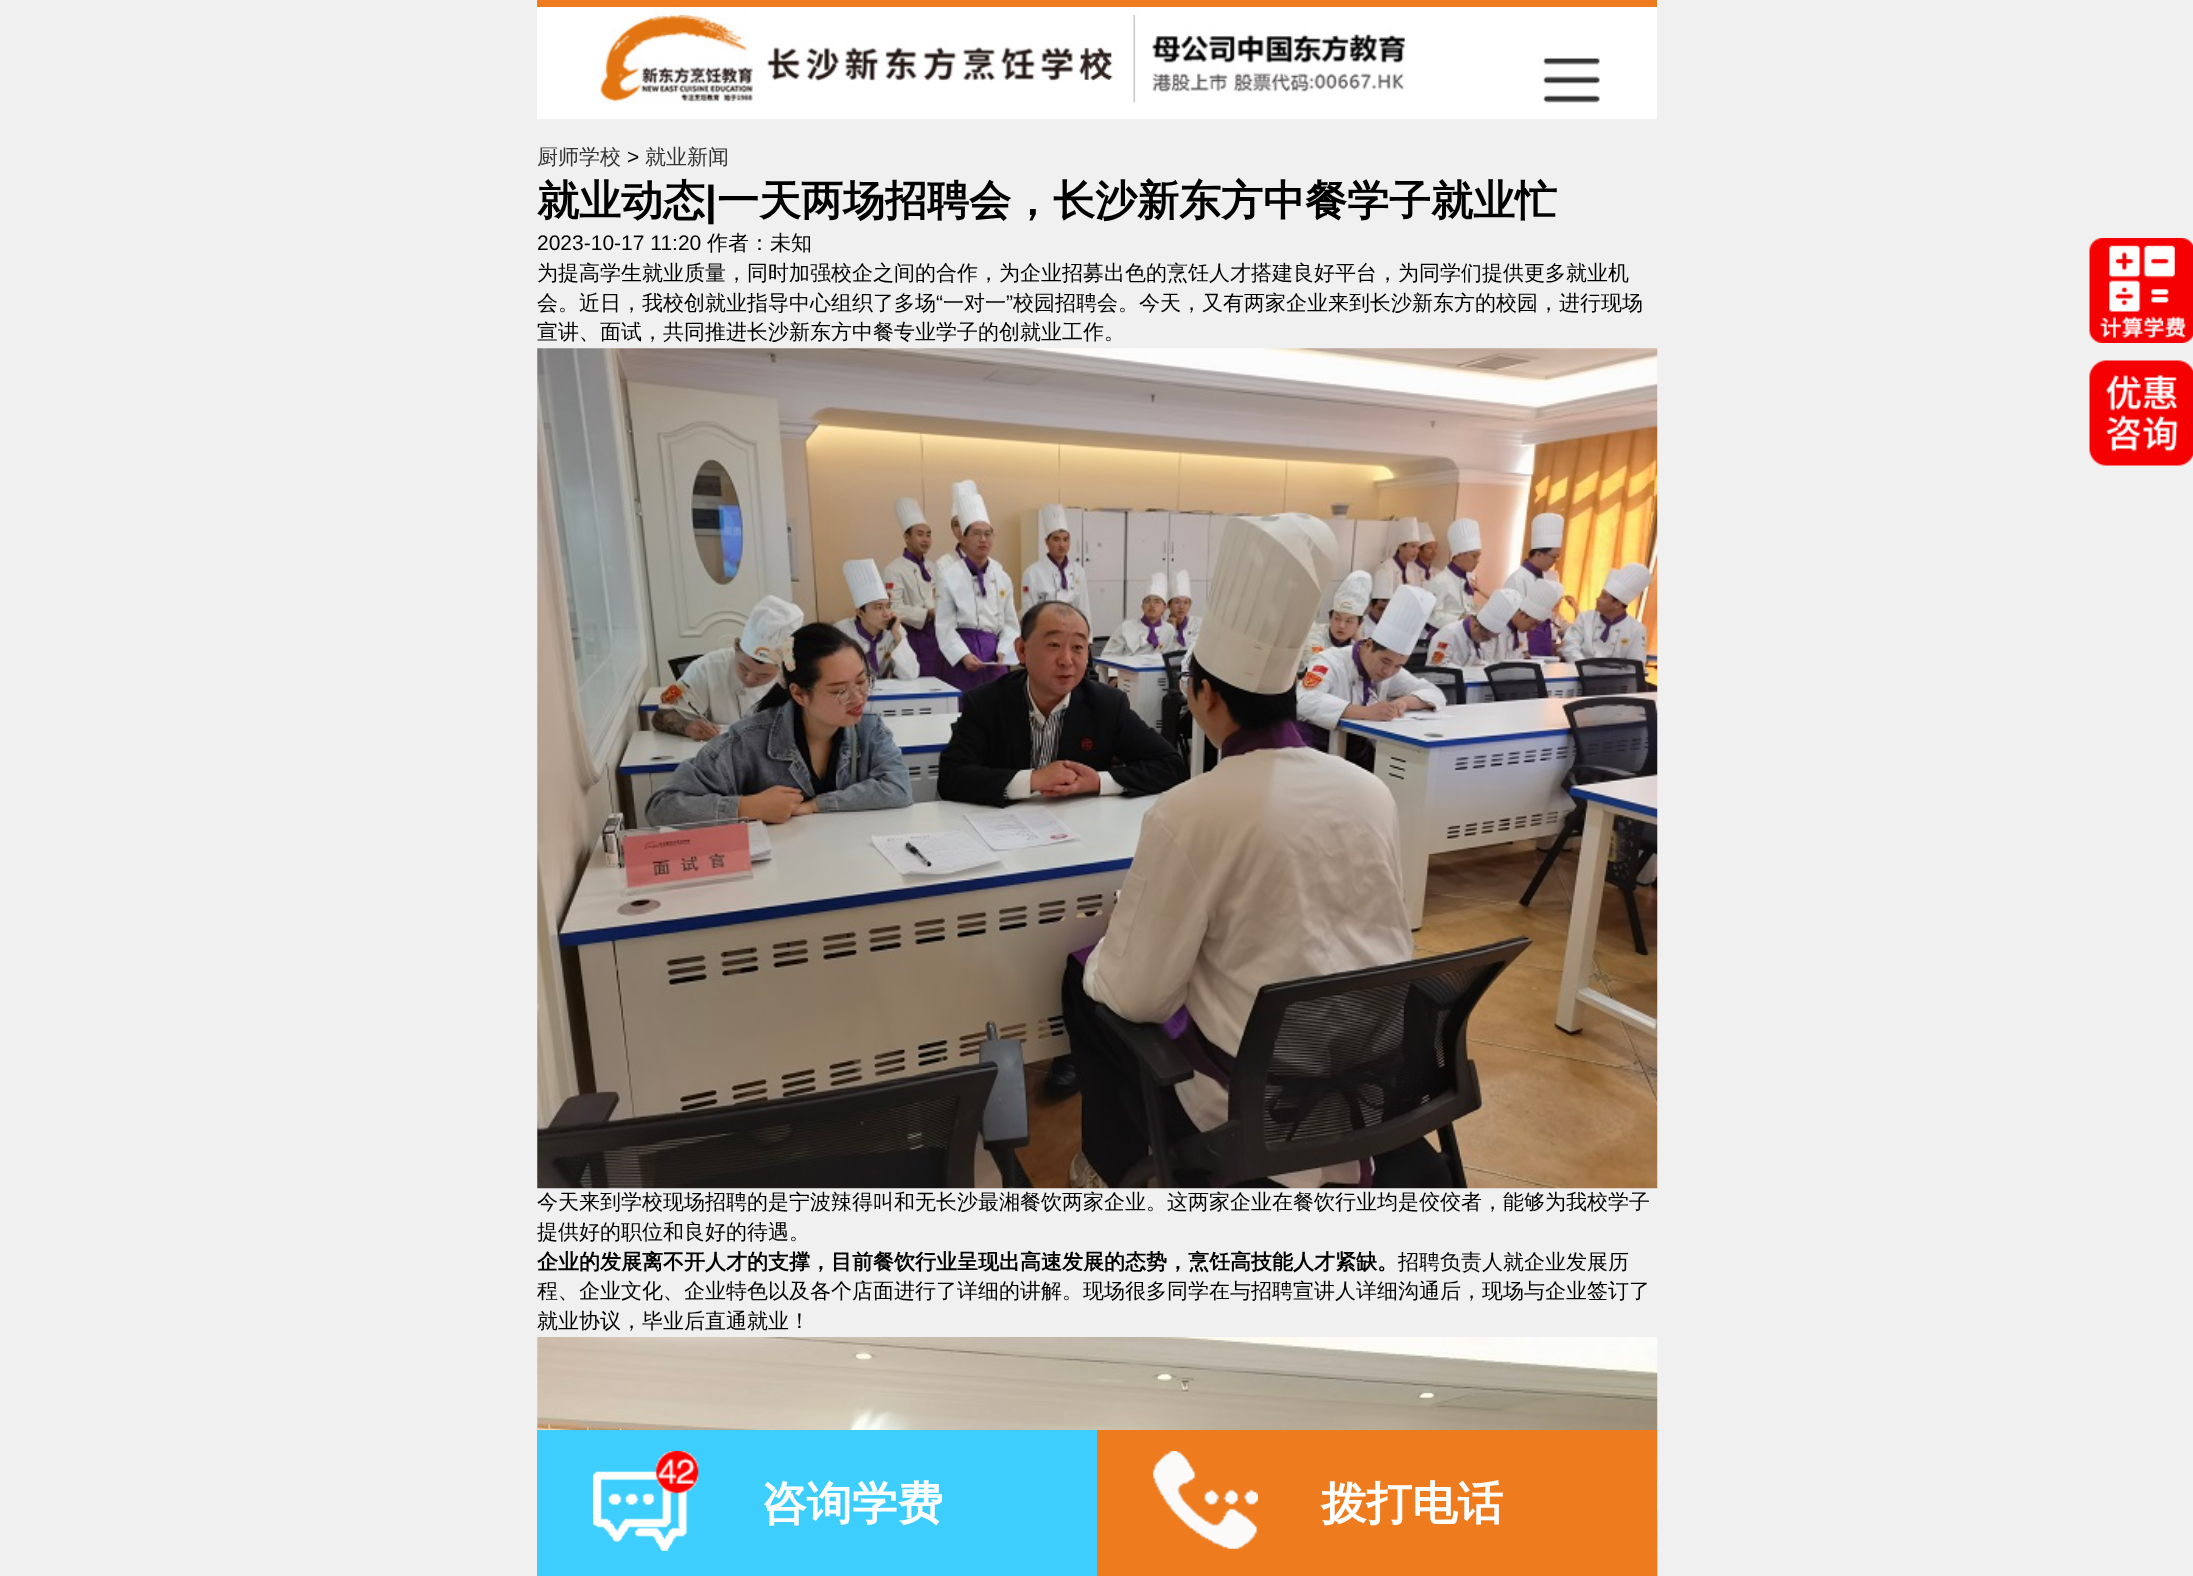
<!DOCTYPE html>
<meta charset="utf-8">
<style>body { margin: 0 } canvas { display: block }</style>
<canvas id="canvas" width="2193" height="1576"></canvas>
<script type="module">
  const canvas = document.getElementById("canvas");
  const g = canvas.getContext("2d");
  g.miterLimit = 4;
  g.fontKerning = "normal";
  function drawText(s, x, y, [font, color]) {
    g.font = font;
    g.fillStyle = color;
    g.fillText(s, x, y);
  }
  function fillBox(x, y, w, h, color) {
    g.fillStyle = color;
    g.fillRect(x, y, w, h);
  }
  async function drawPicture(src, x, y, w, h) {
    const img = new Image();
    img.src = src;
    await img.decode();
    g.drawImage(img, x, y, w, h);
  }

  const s1 = ["500 21px WenQuanYi Zen Hei", "#333333"];
  const s2 = ["21px Liberation Sans", "#000000"];
  const s3 = ["bold 42px WenQuanYi Zen Hei", "#000000"];
  const s4 = ["bold 42px Liberation Sans", "#000000"];
  const s5 = ["500 21px WenQuanYi Zen Hei", "#000000"];
  const s6 = ["bold 21px WenQuanYi Zen Hei", "#000000"];
  const s7 = ["bold 45.5px WenQuanYi Zen Hei", "#FFFFFF"];

  fillBox(0, 0, 2193, 1576, "#F0F0F0");
  fillBox(537, 7, 1120, 112, "#FFFFFF");
  fillBox(537, 0, 1120, 7, "#EE7B1D");
  await drawPicture("pic1.png", 600, 7, 805, 96);
  await drawPicture("pic2.png", 1539, 53, 61, 50);
  drawText("厨师学校", 537, 164, s1);
  drawText(">", 627, 164, s2);
  drawText("就业新闻", 645, 164, s1);
  drawText("就业动态", 537, 215, s3);
  drawText("|", 705, 215, s4);
  drawText("一天两场招聘会，长沙新东方中餐学子就业忙", 717, 215, s3);
  drawText("2023-10-17 11:20", 537, 250, s2);
  drawText("作者：未知", 707, 250, s5);
  drawText("为提高学生就业质量，同时加强校企之间的合作，为企业招募出色的烹饪人才搭建良好平台，为同学们提供更多就业机", 537, 280, s5);
  drawText("会。近日，我校创就业指导中心组织了多场", 537, 310, s5);
  drawText("“", 936, 310, s2);
  drawText("一对一", 943, 310, s5);
  drawText("”", 1006, 310, s2);
  drawText("校园招聘会。今天，又有两家企业来到长沙新东方的校园，进行现场", 1013, 310, s5);
  drawText("宣讲、面试，共同推进长沙新东方中餐专业学子的创就业工作。", 537, 339, s5);
  await drawPicture("pic3.png", 537, 348, 1121, 841);
  drawText("今天来到学校现场招聘的是宁波辣得叫和无长沙最湘餐饮两家企业。这两家企业在餐饮行业均是佼佼者，能够为我校学子", 537, 1209, s5);
  drawText("提供好的职位和良好的待遇。", 537, 1239, s5);
  drawText("企业的发展离不开人才的支撑，目前餐饮行业呈现出高速发展的态势，烹饪高技能人才紧缺。", 537, 1269, s6);
  drawText("招聘负责人就企业发展历", 1398, 1269, s5);
  drawText("程、企业文化、企业特色以及各个店面进行了详细的讲解。现场很多同学在与招聘宣讲人详细沟通后，现场与企业签订了", 537, 1298, s5);
  drawText("就业协议，毕业后直通就业！", 537, 1328, s5);
  await drawPicture("pic4.png", 537, 1337, 1121, 239);
  await drawPicture("pic5.png", 2089, 238, 104, 105);
  await drawPicture("pic6.png", 2089, 360, 104, 106);
  fillBox(537, 1430, 560, 146, "#3DCEFD");
  await drawPicture("pic7.png", 593, 1451, 106, 100);
  drawText("咨询学费", 761, 1519, s7);
  fillBox(1097, 1430, 560, 146, "#EE7B1E");
  await drawPicture("pic8.png", 1153, 1451, 105, 98);
  drawText("拨打电话", 1321, 1519, s7);
</script>
